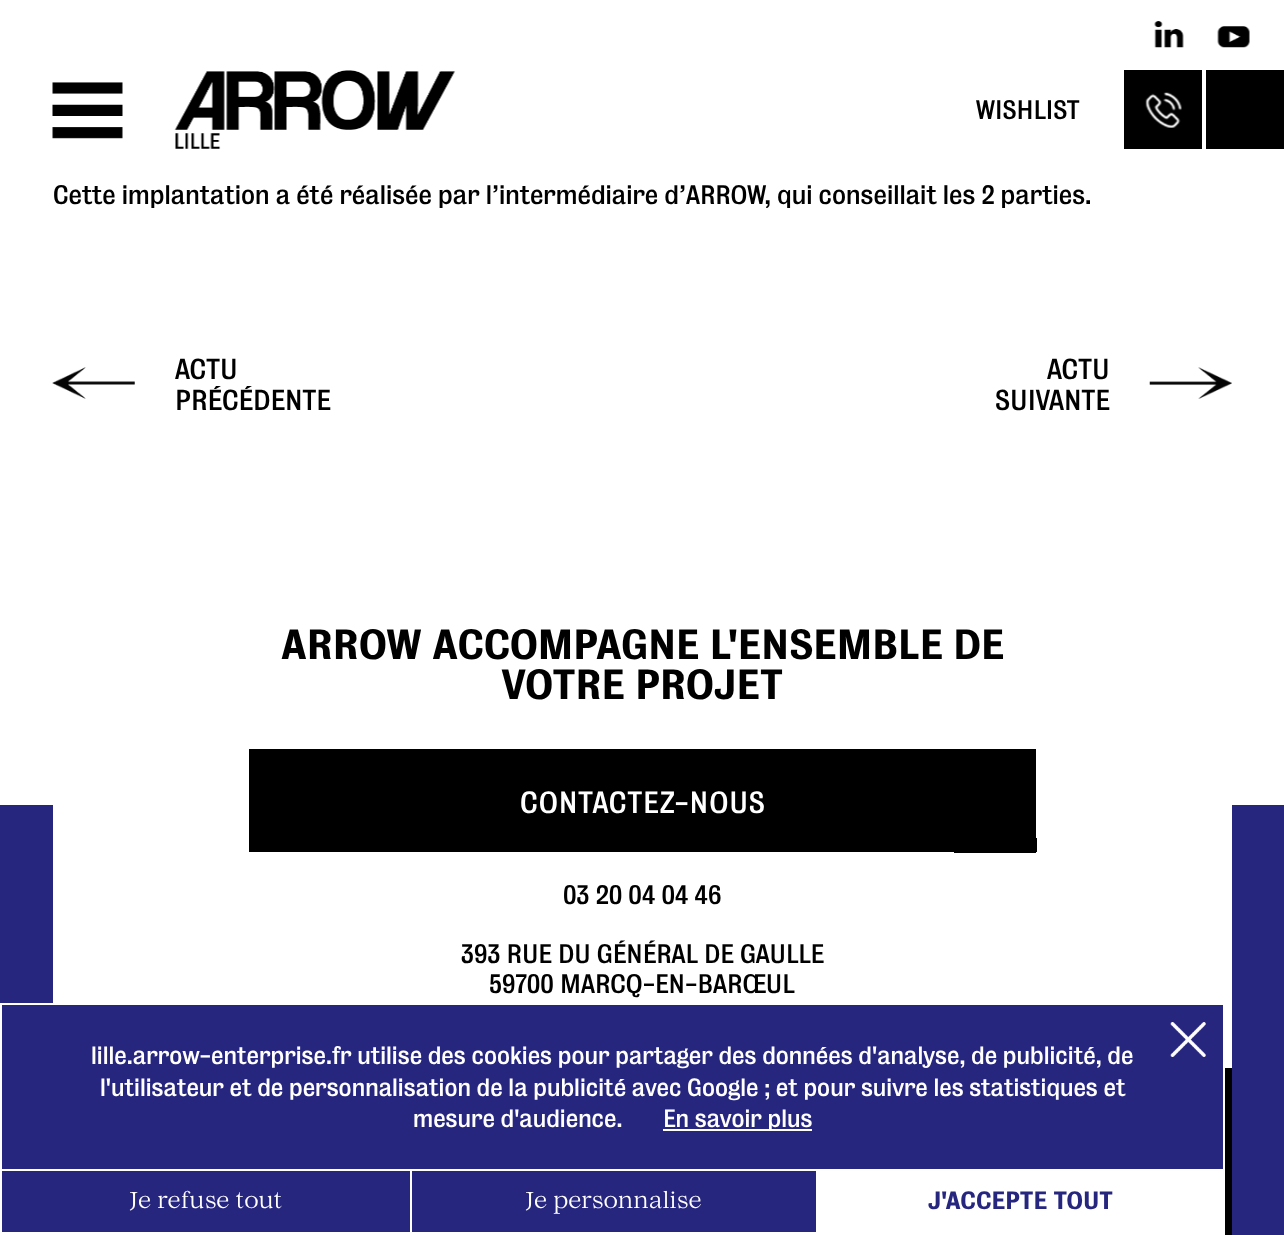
<!DOCTYPE html>
<meta charset="utf-8">
<style>body { margin: 0 } canvas { display: block }</style>
<canvas id="canvas" width="1284" height="1235"></canvas>
<script type="module">
  const canvas = document.getElementById("canvas");
  const g = canvas.getContext("2d");
  g.miterLimit = 4;
  g.fontKerning = "normal";
  function drawText(s, x, y, [font, color]) {
    g.font = font;
    g.fillStyle = color;
    g.fillText(s, x, y);
  }
  function fillBox(x, y, w, h, color) {
    g.fillStyle = color;
    g.fillRect(x, y, w, h);
  }
  async function drawPicture(src, x, y, w, h) {
    const img = new Image();
    img.src = src;
    await img.decode();
    g.drawImage(img, x, y, w, h);
  }

  const s1 = ["24.5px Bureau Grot", "#000000"];
  const s2 = ["26.25px Bureau Grot", "#000000"];
  const s3 = ["500 38.5px BureauGrot", "#000000"];
  const s4 = ["28px Bureau Grot", "#FFFFFF"];
  const s5 = ["22.75px Bureau Grot", "#FFFFFF"];
  const s6 = ["22.75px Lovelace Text", "#FFFFFF"];
  const s7 = ["500 22.75px BureauGrot", "#27267F"];

  fillBox(0, 0, 1284, 1235, "#FFFFFF");
  await drawPicture("pic1.png", 1154, 21, 30, 27);
  await drawPicture("pic2.png", 1217, 26, 33, 22);
  await drawPicture("pic3.png", 52, 82, 71, 57);
  await drawPicture("pic4.png", 174, 70, 282, 79);
  drawText("WISHLIST", 976, 119, s1);
  fillBox(1124, 70, 78, 79, "#000000");
  await drawPicture("pic5.png", 1145, 92, 37, 36);
  fillBox(1206, 70, 78, 79, "#000000");
  drawText("Cette implantation a été réalisée par l’intermédiaire d’ARROW, qui conseillait les 2 parties.", 53, 204, s1);
  await drawPicture("pic6.png", 52, 367, 83, 32);
  drawText("ACTU", 175, 379, s2);
  drawText("PRÉCÉDENTE", 175, 410, s2);
  await drawPicture("pic7.png", 1149, 367, 83, 32);
  drawText("ACTU", 1047, 379, s2);
  drawText("SUIVANTE", 995, 410, s2);
  fillBox(0, 805, 1284, 430, "#27267F");
  fillBox(53, 805, 1179, 263, "#FFFFFF");
  drawText("ARROW ACCOMPAGNE L'ENSEMBLE DE", 281, 659, s3);
  drawText("VOTRE PROJET", 501, 699, s3);
  fillBox(249, 749, 787, 103, "#000000");
  g.letterSpacing = "0.9px";
  drawText("CONTACTEZ-NOUS", 520, 813, s4);
  fillBox(1036, 838, 1, 14, "#000000");
  fillBox(954, 852, 82, 1, "#000000");
  g.letterSpacing = "0px";
  drawText("03 20 04 04 46", 563, 904, s1);
  drawText("393 RUE DU GÉNÉRAL DE GAULLE", 461, 963, s1);
  drawText("59700 MARCQ-EN-BARŒUL", 489, 993, s1);
  fillBox(1225, 1068, 7, 167, "#000000");
  fillBox(53, 1005, 1170, 63, "#27267F");
  g.strokeStyle = "#FFFFFF";
  g.lineWidth = 2;
  g.strokeRect(1, 1004, 1223, 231);
  await drawPicture("pic8.png", 1170, 1022, 36, 35);
  drawText("lille.arrow-enterprise.fr utilise des cookies pour partager des données d'analyse, de publicité, de", 91, 1064, s5);
  drawText("l'utilisateur et de personnalisation de la publicité avec Google ; et pour suivre les statistiques et", 100, 1096, s5);
  drawText("mesure d'audience.", 413, 1127, s5);
  fillBox(663, 1129, 149, 2, "#FFFFFF");
  drawText("En savoir plus", 663, 1127, s5);
  fillBox(2, 1169, 1221, 2, "#FFFFFF");
  fillBox(2, 1232, 1221, 2, "#FFFFFF");
  drawText("Je refuse tout", 129, 1208, s6);
  fillBox(410, 1171, 2, 61, "#FFFFFF");
  drawText("Je personnalise", 525, 1208, s6);
  fillBox(816, 1171, 407, 61, "#FFFFFF");
  drawText("J'ACCEPTE TOUT", 928, 1209, s7);
</script>
